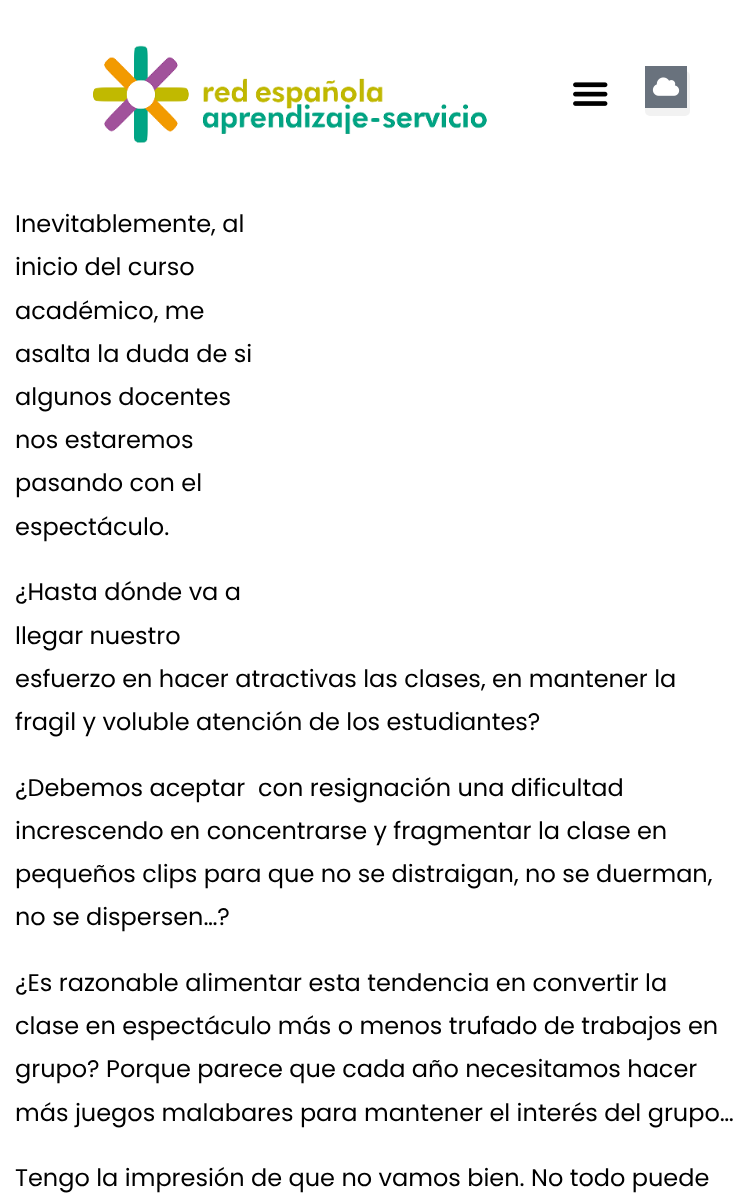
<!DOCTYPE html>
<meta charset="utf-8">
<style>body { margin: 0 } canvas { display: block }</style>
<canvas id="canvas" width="750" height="1204"></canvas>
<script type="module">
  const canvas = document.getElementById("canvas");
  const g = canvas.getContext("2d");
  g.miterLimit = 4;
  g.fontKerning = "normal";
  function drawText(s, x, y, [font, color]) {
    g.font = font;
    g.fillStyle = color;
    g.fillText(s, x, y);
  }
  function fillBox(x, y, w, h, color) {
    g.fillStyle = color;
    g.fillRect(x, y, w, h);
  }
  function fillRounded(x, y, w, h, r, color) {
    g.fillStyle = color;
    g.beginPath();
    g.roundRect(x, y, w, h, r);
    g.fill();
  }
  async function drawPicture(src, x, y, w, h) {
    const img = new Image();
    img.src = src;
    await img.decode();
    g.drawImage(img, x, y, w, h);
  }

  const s1 = ["24px Poppins", "#000000"];

  fillBox(0, 0, 750, 1204, "#FFFFFF");
  await drawPicture("pic1.png", 93, 45, 394, 98);
  await drawPicture("pic2.png", 573, 82, 35, 24);
  fillRounded(645, 71, 45, 45, 5, "#F2F2F2");
  fillBox(645, 66, 42, 42, "#69727D");
  await drawPicture("pic3.png", 652, 77, 28, 19);
  drawText("Inevitablemente, al", 15, 232, s1);
  drawText("inicio del curso", 15, 275, s1);
  drawText("académico, me", 15, 319, s1);
  drawText("asalta la duda de si", 15, 362, s1);
  drawText("algunos docentes", 15, 405, s1);
  drawText("nos estaremos", 15, 448, s1);
  drawText("pasando con el", 15, 491, s1);
  drawText("espectáculo.", 15, 535, s1);
  drawText("¿Hasta dónde va a", 15, 600, s1);
  drawText("llegar nuestro", 15, 644, s1);
  drawText("esfuerzo en hacer atractivas las clases, en mantener la", 15, 687, s1);
  drawText("fragil y voluble atención de los estudiantes?", 15, 730, s1);
  drawText("¿Debemos aceptar  con resignación una dificultad", 15, 796, s1);
  drawText("increscendo en concentrarse y fragmentar la clase en", 15, 839, s1);
  drawText("pequeños clips para que no se distraigan, no se duerman,", 15, 882, s1);
  drawText("no se dispersen…?", 15, 925, s1);
  drawText("¿Es razonable alimentar esta tendencia en convertir la", 15, 991, s1);
  drawText("clase en espectáculo más o menos trufado de trabajos en", 15, 1034, s1);
  drawText("grupo? Porque parece que cada año necesitamos hacer", 15, 1077, s1);
  drawText("más juegos malabares para mantener el interés del grupo…", 15, 1121, s1);
  drawText("Tengo la impresión de que no vamos bien. No todo puede", 15, 1186, s1);
</script>
